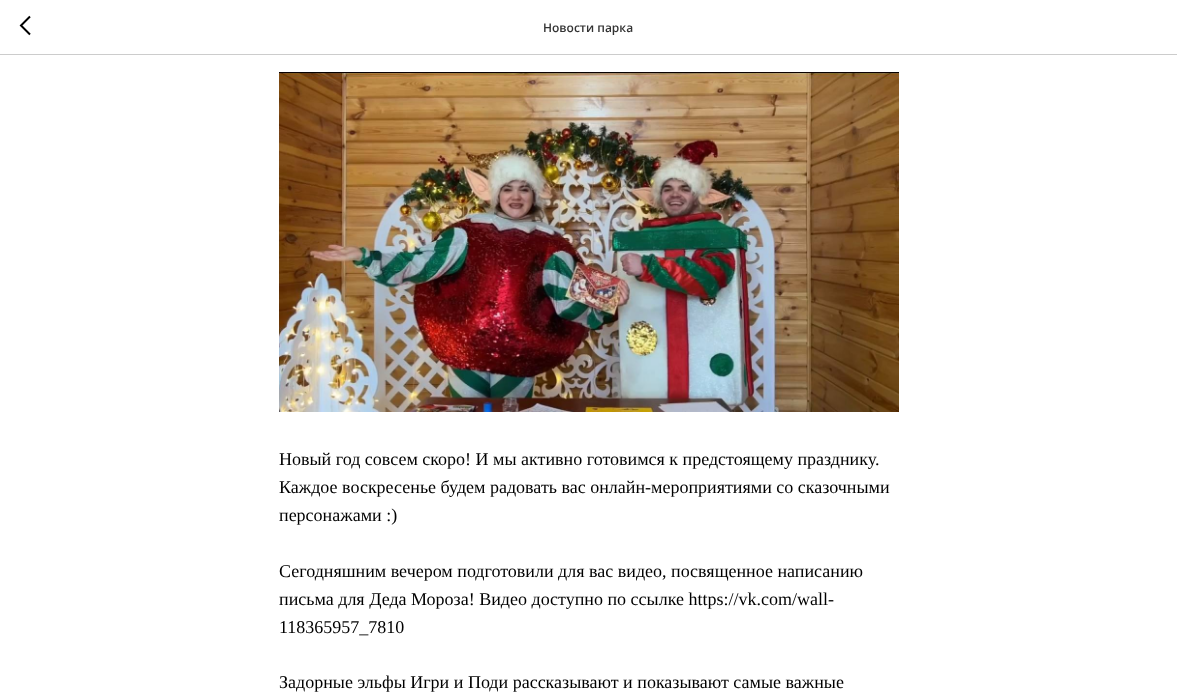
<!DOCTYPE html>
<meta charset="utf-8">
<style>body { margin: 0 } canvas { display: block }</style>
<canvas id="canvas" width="1177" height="699"></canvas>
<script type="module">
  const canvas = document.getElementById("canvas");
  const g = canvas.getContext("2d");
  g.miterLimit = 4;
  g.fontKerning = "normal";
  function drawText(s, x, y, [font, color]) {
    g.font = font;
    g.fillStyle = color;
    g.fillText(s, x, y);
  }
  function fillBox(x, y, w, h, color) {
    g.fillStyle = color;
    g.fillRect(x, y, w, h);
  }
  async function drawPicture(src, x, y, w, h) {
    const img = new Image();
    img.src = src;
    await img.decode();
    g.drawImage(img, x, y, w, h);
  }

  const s1 = ["600 12px Open Sans", "#333333"];
  const s2 = ["18px Liberation Serif", "#000000"];

  fillBox(0, 0, 1177, 699, "#FFFFFF");
  fillBox(0, 54, 1177, 1, "#CCCCCC");
  g.beginPath();
  g.moveTo(30, 34.5);
  g.lineTo(21, 25.5);
  g.lineTo(30, 16.5);
  g.strokeStyle = "#000000";
  g.lineWidth = 2;
  g.stroke();
  drawText("Новости парка", 543, 32, s1);
  await drawPicture("pic1.png", 279, 72, 620, 340);
  drawText("Новый год совсем скоро! И мы активно готовимся к предстоящему празднику.", 279, 465, s2);
  drawText("Каждое воскресенье будем радовать вас онлайн-мероприятиями со сказочными", 279, 493, s2);
  drawText("персонажами :)", 279, 521, s2);
  drawText("Сегодняшним вечером подготовили для вас видео, посвященное написанию", 279, 577, s2);
  drawText("письма для Деда Мороза! Видео доступно по ссылке https://vk.com/wall-", 279, 605, s2);
  drawText("118365957_7810", 279, 633, s2);
  drawText("Задорные эльфы Игри и Поди рассказывают и показывают самые важные", 279, 688, s2);
</script>
